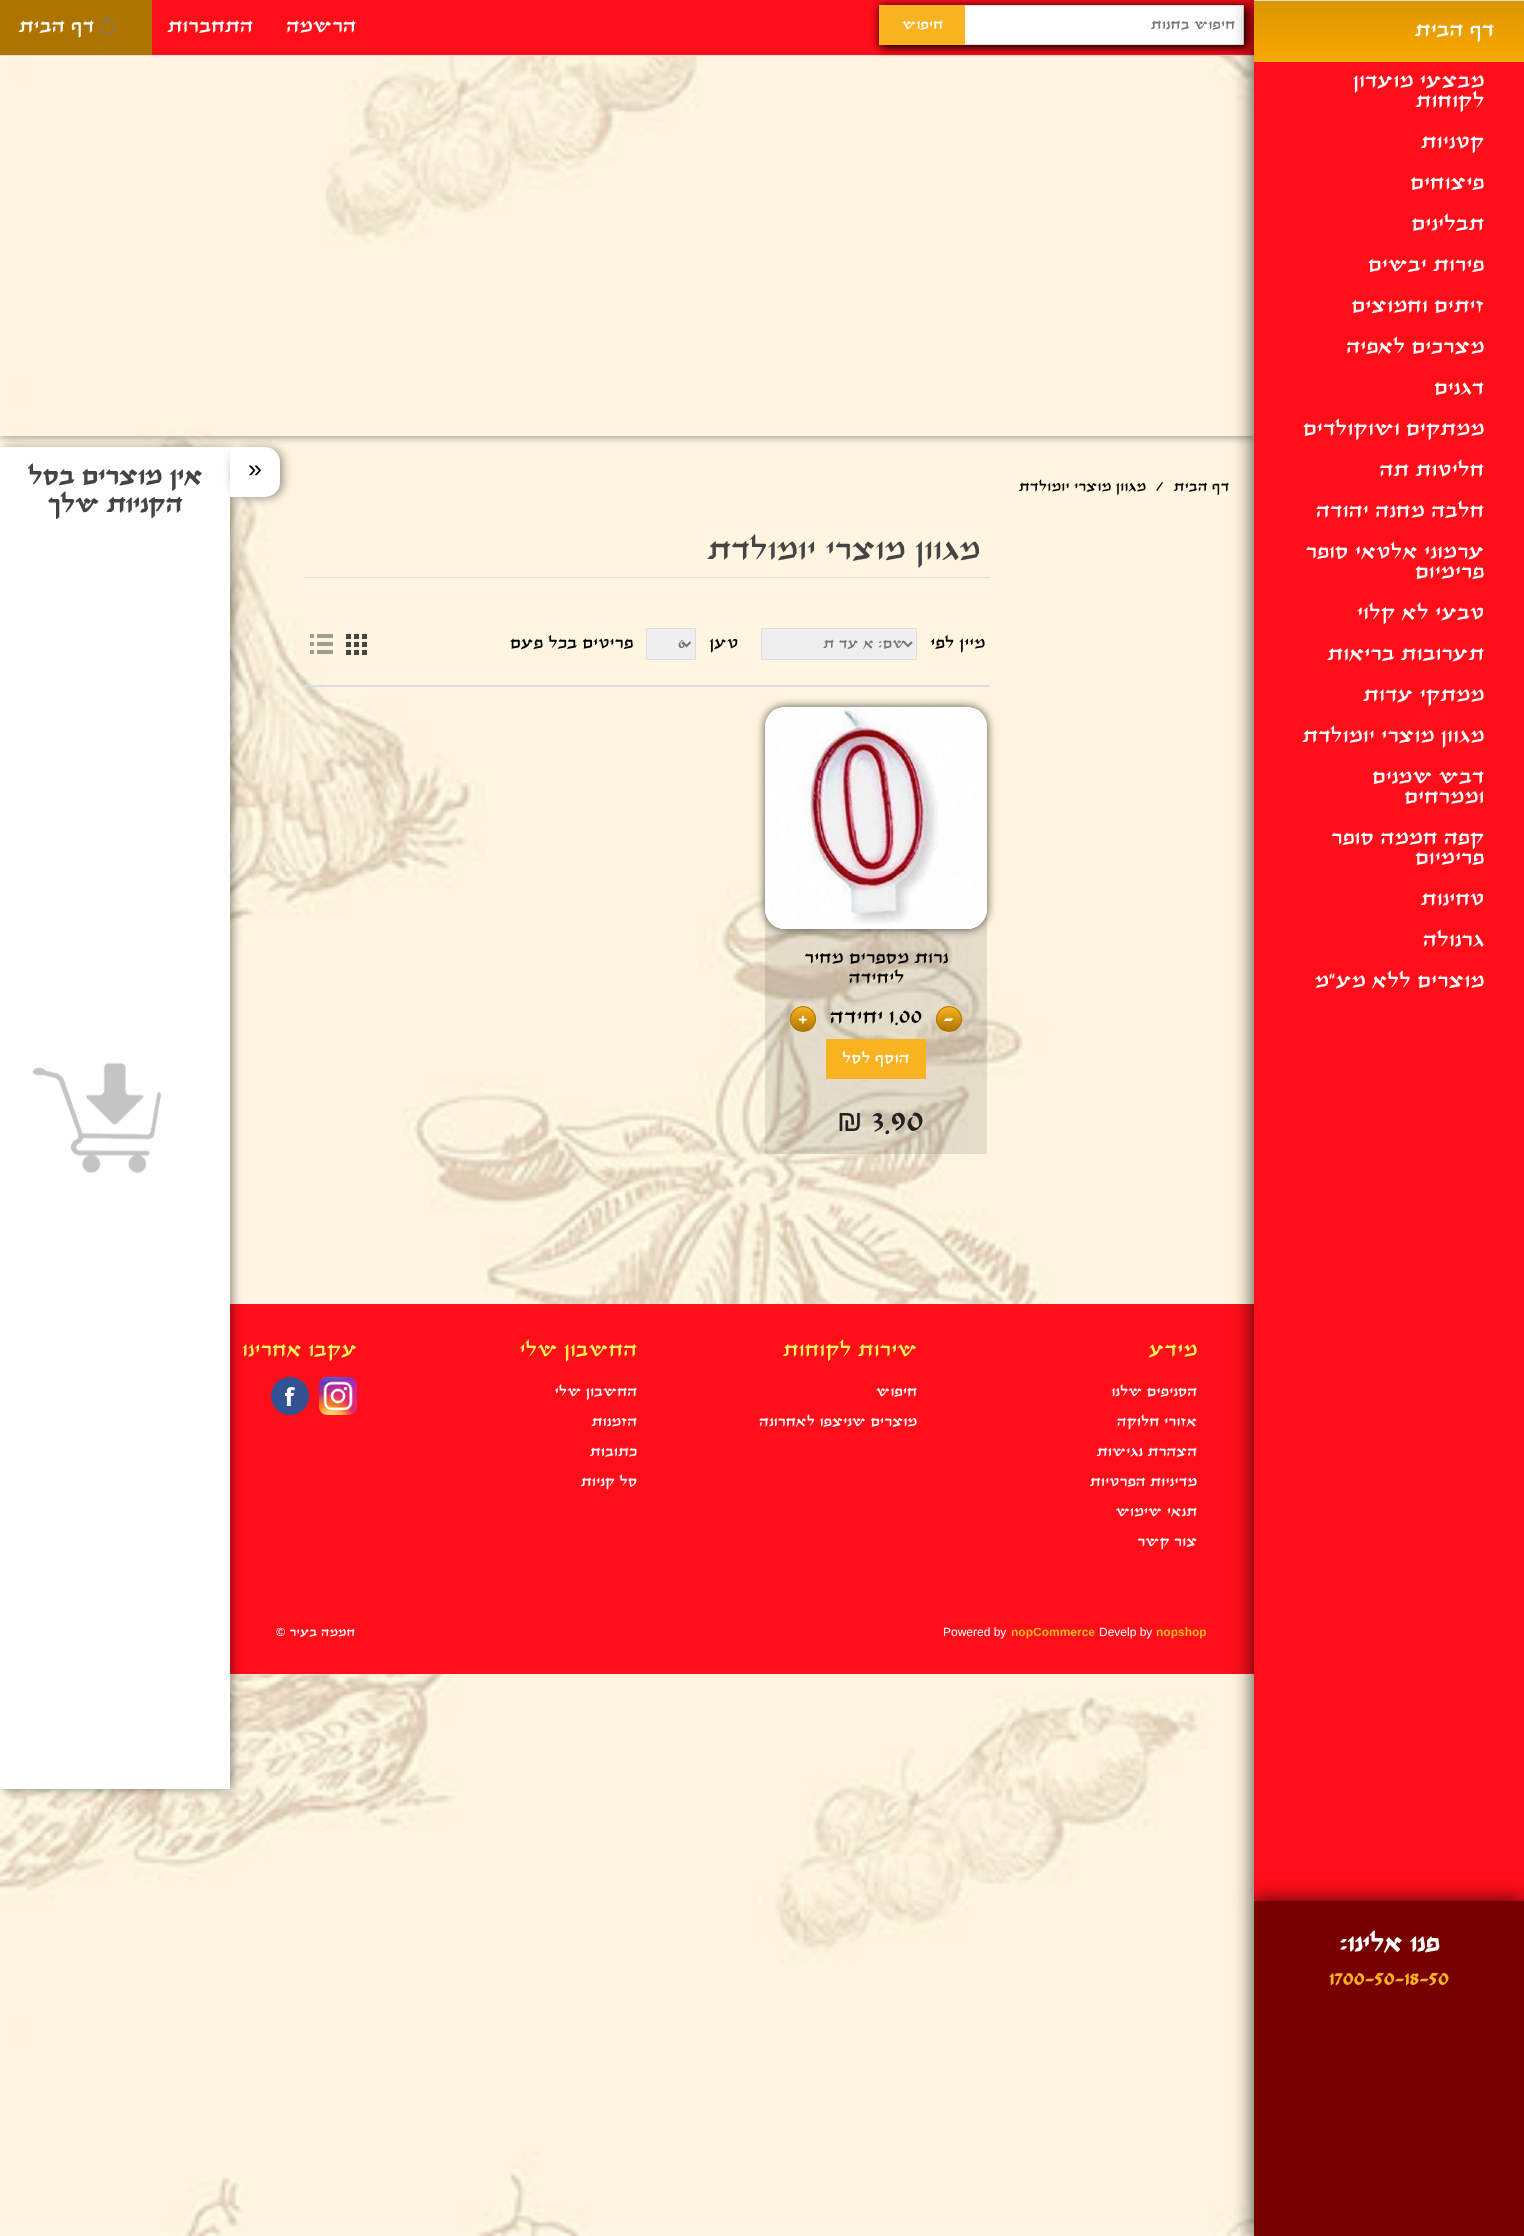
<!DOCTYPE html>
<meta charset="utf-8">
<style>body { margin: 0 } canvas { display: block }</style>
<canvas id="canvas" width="1524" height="2236"></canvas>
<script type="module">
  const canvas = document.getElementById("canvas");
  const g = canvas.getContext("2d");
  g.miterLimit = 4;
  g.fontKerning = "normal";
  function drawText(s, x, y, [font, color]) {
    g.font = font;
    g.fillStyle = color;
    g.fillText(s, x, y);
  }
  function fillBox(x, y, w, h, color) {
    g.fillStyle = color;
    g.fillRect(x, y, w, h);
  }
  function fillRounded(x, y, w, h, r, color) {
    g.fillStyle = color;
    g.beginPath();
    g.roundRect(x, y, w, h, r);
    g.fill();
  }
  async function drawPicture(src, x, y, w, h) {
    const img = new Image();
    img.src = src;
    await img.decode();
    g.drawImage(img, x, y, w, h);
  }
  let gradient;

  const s1 = ["20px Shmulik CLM", "#FFFFFF"];
  const s2 = ["bold 24px Shmulik CLM", "#FFFFFF"];
  const s3 = ["bold 18.75px Shmulik CLM", "#F9B321"];
  const s4 = ["14px Shmulik CLM", "#777777"];
  const s5 = ["14px Shmulik CLM", "#FFFFFF"];
  const s6 = ["19px Shmulik CLM", "#FFFFFF"];
  const s7 = ["25px Liberation Sans", "#000000"];
  const s8 = ["bold 24px Shmulik CLM", "#444444"];
  const s9 = ["14px Shmulik CLM", "#000000"];
  const s10 = ["30px Shmulik CLM", "#444444"];
  const s11 = ["16px Shmulik CLM", "#000000"];
  const s12 = ["17px Shmulik CLM", "#000000"];
  const s13 = ["21px Shmulik CLM", "#FFFFFF"];
  const s14 = ["20px Shmulik CLM", "#000000"];
  const s15 = ["15px Shmulik CLM", "#FFFFFF"];
  const s16 = ["30px Shmulik CLM", "#222222"];
  const s17 = ["30px Liberation Sans", "#222222"];
  const s18 = ["20px Shmulik CLM", "#FFEE56"];
  const s19 = ["bold 12px Liberation Sans", "#F9B321"];
  const s20 = ["12px Liberation Sans", "#FFFFFF"];
  const s21 = ["12px Shmulik CLM", "#FFFFFF"];

  fillBox(0, 0, 1524, 2236, "#FFFFFF");
  await drawPicture("pic1.png", 0, 56, 1254, 2180);
  g.save();
  g.beginPath();
  g.rect(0, 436, 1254, 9);
  g.clip();
  g.fillStyle = "rgba(0, 0, 0, 0.5)";
  g.filter = "blur(5px)";
  g.beginPath();
  g.rect(0, 0, 1254, 436);
  g.fill();
  g.filter = "none";
  g.restore();
  fillBox(152, 0, 1102, 55, "#FE0E19");
  fillBox(0, 55, 1254, 1, "#DDDDDD");
  g.fillStyle = "#000000";
  g.filter = "blur(5px)";
  g.beginPath();
  g.rect(880, 6, 367, 42);
  g.fill();
  g.filter = "none";
  g.fillStyle = "#FFFFFF";
  g.beginPath();
  g.rect(964.5, 5.5, 279, 39);
  g.fill();
  g.strokeStyle = "#DDDDDD";
  g.stroke();
  fillBox(230, 1304, 1024, 370, "#FE0E19");
  g.fillStyle = "rgba(0, 0, 0, 0.7)";
  g.filter = "blur(10px)";
  g.beginPath();
  g.rect(1253, -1, 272, 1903);
  g.fill();
  g.filter = "none";
  fillBox(1254, 62, 270, 1839, "#FE0E19");
  fillBox(1254, 0, 270, 1, "#DDDDDD");
  gradient = g.createLinearGradient(1389, 1, 1389, 62);
  gradient.addColorStop(0, "#DC9500");
  gradient.addColorStop(1, "#F9A900");
  g.fillStyle = gradient;
  g.fillRect(1254, 1, 270, 61);
  g.direction = "rtl";
  drawText("דף הבית", 1494, 36, s1);
  drawText("מבצעי מועדון", 1484, 87, s1);
  drawText("לקוחות", 1484, 107, s1);
  drawText("קטניות", 1484, 148, s1);
  drawText("פיצוחים", 1484, 189, s1);
  drawText("תבלינים", 1484, 230, s1);
  drawText("פירות יבשים", 1484, 271, s1);
  drawText("זיתים וחמוצים", 1484, 312, s1);
  drawText("מצרכים לאפיה", 1484, 353, s1);
  drawText("דגנים", 1484, 394, s1);
  drawText("ממתקים ושוקולדים", 1484, 435, s1);
  drawText("חליטות תה", 1484, 476, s1);
  drawText("חלבה מחנה יהודה", 1484, 517, s1);
  drawText("ערמוני אלטאי סופר", 1484, 558, s1);
  drawText("פרימיום", 1484, 578, s1);
  drawText("טבעי לא קלוי", 1484, 619, s1);
  drawText("תערובות בריאות", 1484, 660, s1);
  drawText("ממתקי עדות", 1484, 701, s1);
  drawText("מגוון מוצרי יומולדת", 1484, 742, s1);
  drawText("דבש שמנים", 1484, 783, s1);
  drawText("וממרחים", 1484, 803, s1);
  drawText("קפה חממה סופר", 1484, 844, s1);
  drawText("פרימיום", 1484, 864, s1);
  drawText("טחינות", 1484, 905, s1);
  drawText("גרנולה", 1484, 946, s1);
  drawText("מוצרים ללא מע\"מ", 1484, 987, s1);
  g.fillStyle = "rgba(0, 0, 0, 0.7)";
  g.filter = "blur(10px)";
  g.beginPath();
  g.rect(1253, 1900, 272, 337);
  g.fill();
  g.filter = "none";
  fillBox(1254, 1901, 270, 335, "#770101");
  drawText("פנו אלינו:", 1439, 1951, s2);
  g.direction = "ltr";
  drawText("1700-50-18-50", 1329, 1985, s3);
  g.direction = "rtl";
  drawText("חיפוש בחנות", 1235, 29, s4);
  fillBox(879, 5, 86, 40, "#F9B321");
  drawText("חיפוש", 943, 29, s5);
  drawText("הרשמה", 356, 32, s6);
  drawText("התחברות", 253, 32, s6);
  fillBox(0, 0, 152, 55, "#AD7500");
  await drawPicture("pic2.png", 101, 17, 13, 17);
  drawText("דף הבית", 94, 32, s6);
  g.fillStyle = "rgba(0, 0, 0, 0.4)";
  g.filter = "blur(5px)";
  g.beginPath();
  g.rect(3, 448, 230, 1342);
  g.fill();
  g.filter = "none";
  fillBox(0, 447, 230, 1342, "#FFFFFF");
  g.fillStyle = "rgba(0, 0, 0, 0.4)";
  g.filter = "blur(5px)";
  g.beginPath();
  g.roundRect(233, 448, 50, 50, 15);
  g.fill();
  g.filter = "none";
  g.fillStyle = "#FFFFFF";
  g.beginPath();
  g.roundRect(230, 447, 50, 50, [0, 15, 15, 0]);
  g.fill();
  g.direction = "ltr";
  drawText("»", 248, 477, s7);
  g.direction = "rtl";
  drawText("אין מוצרים בסל", 202, 484, s8);
  drawText("הקניות שלך", 182, 512, s8);
  await drawPicture("pic3.png", 32, 1062, 129, 112);
  drawText("דף הבית", 1229, 491, s9);
  g.direction = "ltr";
  drawText("/", 1156, 491, s9);
  g.direction = "rtl";
  drawText("מגוון מוצרי יומולדת", 1146, 491, s9);
  fillBox(304, 577, 686, 1, "#DDDDDD");
  drawText("מגוון מוצרי יומולדת", 980, 559, s10);
  fillBox(304, 685, 686, 2, "#DDDDDD");
  drawText("מיין לפי", 985, 648, s11);
  g.fillStyle = "#EFEFEF";
  g.beginPath();
  g.rect(761.5, 628.5, 155, 31);
  g.fill();
  g.stroke();
  g.beginPath();
  g.moveTo(904, 642);
  g.lineTo(908, 646);
  g.lineTo(912, 642);
  g.strokeStyle = "#777777";
  g.lineWidth = 2;
  g.stroke();
  drawText("שם: א עד ת", 906, 648, s4);
  drawText("טען", 738, 648, s11);
  g.fillStyle = "#EFEFEF";
  g.beginPath();
  g.rect(646.5, 628.5, 49, 31);
  g.fill();
  g.strokeStyle = "#DDDDDD";
  g.lineWidth = 1;
  g.stroke();
  g.beginPath();
  g.moveTo(682.5, 642);
  g.lineTo(686.5, 646);
  g.lineTo(690.5, 642);
  g.strokeStyle = "#777777";
  g.lineWidth = 2;
  g.stroke();
  g.direction = "ltr";
  drawText("6", 678, 648, s4);
  g.direction = "rtl";
  drawText("פריטים בכל פעם", 633, 648, s11);
  await drawPicture("pic4.png", 346, 634, 21, 21);
  await drawPicture("pic5.png", 310, 634, 23, 20);
  g.fillStyle = "rgba(0, 0, 0, 0.1)";
  g.beginPath();
  g.roundRect(765, 707, 222, 447, [20, 20, 0, 0]);
  g.fill();
  g.fillStyle = "rgba(0, 0, 0, 0.7)";
  g.filter = "blur(5px)";
  g.beginPath();
  g.roundRect(765, 707, 222, 222, 20);
  g.fill();
  g.filter = "none";
  fillRounded(765, 707, 222, 222, 20, "#FFFFFF");
  await drawPicture("pic6.png", 765, 707, 222, 222);
  drawText("נרות מספרים מחיר", 948, 963, s12);
  drawText("ליחידה", 904, 983, s12);
  g.save();
  g.beginPath();
  g.roundRect(936, 1006, 26, 26, 13);
  g.clip();
  gradient = g.createLinearGradient(949, 1007, 949, 1031);
  gradient.addColorStop(0, "#F9B321");
  gradient.addColorStop(1, "#AD7500");
  g.fillStyle = gradient;
  g.fillRect(936, 1007, 26, 24);
  g.restore();
  g.beginPath();
  g.arc(949, 1019, 12.5, 0, Math.PI * 2);
  g.strokeStyle = "#AD7500";
  g.lineWidth = 1;
  g.stroke();
  g.direction = "ltr";
  drawText("-", 943, 1025, s13);
  drawText("1.00", 889, 1023, s14);
  g.direction = "rtl";
  drawText("יחידה", 883, 1023, s14);
  fillBox(826, 1039, 100, 40, "#F9B321");
  drawText("הוסף לסל", 909, 1063, s15);
  g.save();
  g.beginPath();
  g.roundRect(790, 1006, 26, 26, 13);
  g.clip();
  gradient = g.createLinearGradient(803, 1007, 803, 1031);
  gradient.addColorStop(0, "#F9B321");
  gradient.addColorStop(1, "#AD7500");
  g.fillStyle = gradient;
  g.fillRect(790, 1007, 26, 24);
  g.restore();
  g.beginPath();
  g.arc(803, 1019, 12.5, 0, Math.PI * 2);
  g.stroke();
  g.direction = "ltr";
  drawText("+", 798, 1025, s13);
  drawText("3.90", 872, 1131, s16);
  drawText("₪", 837, 1131, s17);
  g.direction = "rtl";
  drawText("מידע", 1197, 1356, s18);
  drawText("הסניפים שלנו", 1197, 1396, s5);
  drawText("אזורי חלוקה", 1197, 1426, s5);
  drawText("הצהרת נגישות", 1197, 1456, s5);
  drawText("מדיניות הפרטיות", 1197, 1486, s5);
  drawText("תנאי שימוש", 1197, 1516, s5);
  drawText("צור קשר", 1197, 1546, s5);
  drawText("שירות לקוחות", 917, 1356, s18);
  drawText("חיפוש", 917, 1396, s5);
  drawText("מוצרים שניצפו לאחרונה", 917, 1426, s5);
  drawText("החשבון שלי", 637, 1356, s18);
  drawText("החשבון שלי", 637, 1396, s5);
  drawText("הזמנות", 637, 1426, s5);
  drawText("כתובות", 637, 1456, s5);
  drawText("סל קניות", 637, 1486, s5);
  drawText("עקבו אחרינו", 357, 1356, s18);
  await drawPicture("pic7.png", 319, 1377, 38, 38);
  await drawPicture("pic8.png", 271, 1377, 38, 38);
  g.direction = "ltr";
  drawText("nopshop", 1156, 1636, s19);
  drawText("Develp by", 1099, 1636, s20);
  drawText("nopCommerce", 1011, 1636, s19);
  drawText("Powered by", 943, 1636, s20);
  g.direction = "rtl";
  drawText("חממה בעיר", 355, 1636, s21);
  drawText("©", 285, 1636, s20);
</script>
